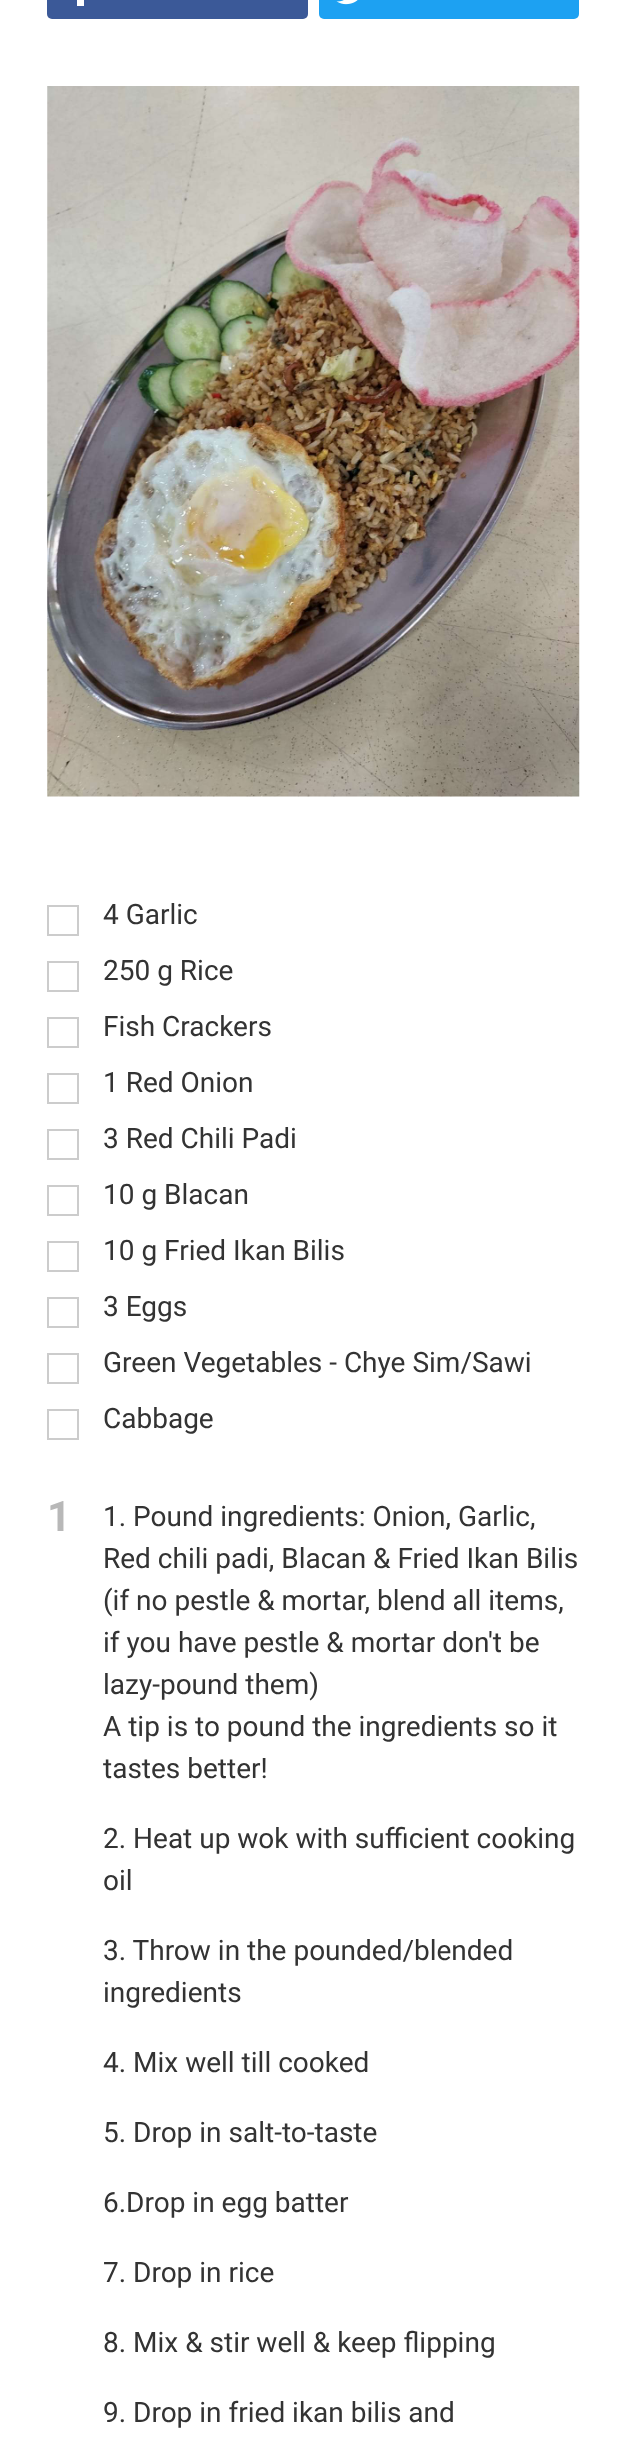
<!DOCTYPE html>
<meta charset="utf-8">
<style>body { margin: 0 } canvas { display: block }</style>
<canvas id="canvas" width="625" height="2452"></canvas>
<script type="module">
  const canvas = document.getElementById("canvas");
  const g = canvas.getContext("2d");
  g.miterLimit = 4;
  g.fontKerning = "normal";
  function drawText(s, x, y, [font, color]) {
    g.font = font;
    g.fillStyle = color;
    g.fillText(s, x, y);
  }
  function fillBox(x, y, w, h, color) {
    g.fillStyle = color;
    g.fillRect(x, y, w, h);
  }
  function fillRounded(x, y, w, h, r, color) {
    g.fillStyle = color;
    g.beginPath();
    g.roundRect(x, y, w, h, r);
    g.fill();
  }
  async function drawPicture(src, x, y, w, h) {
    const img = new Image();
    img.src = src;
    await img.decode();
    g.drawImage(img, x, y, w, h);
  }

  const s1 = ["28px Roboto", "#333333"];
  const s2 = ["bold 42px Roboto", "#B8B8B8"];

  fillBox(0, 0, 625, 2452, "#FFFFFF");
  fillRounded(47, -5, 261, 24, 5, "#3B5998");
  fillBox(77, 0, 7, 6, "#FFFFFF");
  fillRounded(319, -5, 260, 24, 5, "#1DA1F2");
  await drawPicture("pic1.png", 336, 0, 22, 5);
  await drawPicture("pic2.png", 47, 86, 533, 711);
  g.strokeStyle = "#CCCCCC";
  g.lineWidth = 2;
  g.strokeRect(48, 906, 30, 29);
  drawText("4 Garlic", 103, 924, s1);
  g.strokeRect(48, 962, 30, 29);
  drawText("250 g Rice", 103, 980, s1);
  g.strokeRect(48, 1018, 30, 29);
  drawText("Fish Crackers", 103, 1036, s1);
  g.strokeRect(48, 1074, 30, 29);
  drawText("1 Red Onion", 103, 1092, s1);
  g.strokeRect(48, 1130, 30, 29);
  drawText("3 Red Chili Padi", 103, 1148, s1);
  g.strokeRect(48, 1186, 30, 29);
  drawText("10 g Blacan", 103, 1204, s1);
  g.strokeRect(48, 1242, 30, 29);
  drawText("10 g Fried Ikan Bilis", 103, 1260, s1);
  g.strokeRect(48, 1298, 30, 29);
  drawText("3 Eggs", 103, 1316, s1);
  g.strokeRect(48, 1354, 30, 29);
  drawText("Green Vegetables - Chye Sim/Sawi", 103, 1372, s1);
  g.strokeRect(48, 1410, 30, 29);
  drawText("Cabbage", 103, 1428, s1);
  drawText("1", 47, 1531, s2);
  drawText("1. Pound ingredients: Onion, Garlic,", 103, 1526, s1);
  drawText("Red chili padi, Blacan & Fried Ikan Bilis", 103, 1568, s1);
  drawText("(if no pestle & mortar, blend all items,", 103, 1610, s1);
  drawText("if you have pestle & mortar don't be", 103, 1652, s1);
  drawText("lazy-pound them)", 103, 1694, s1);
  drawText("A tip is to pound the ingredients so it", 103, 1736, s1);
  drawText("tastes better!", 103, 1778, s1);
  drawText("2. Heat up wok with sufficient cooking", 103, 1848, s1);
  drawText("oil", 103, 1890, s1);
  drawText("3. Throw in the pounded/blended", 103, 1960, s1);
  drawText("ingredients", 103, 2002, s1);
  drawText("4. Mix well till cooked", 103, 2072, s1);
  drawText("5. Drop in salt-to-taste", 103, 2142, s1);
  drawText("6.Drop in egg batter", 103, 2212, s1);
  drawText("7. Drop in rice", 103, 2282, s1);
  drawText("8. Mix & stir well & keep flipping", 103, 2352, s1);
  drawText("9. Drop in fried ikan bilis and", 103, 2422, s1);
</script>
